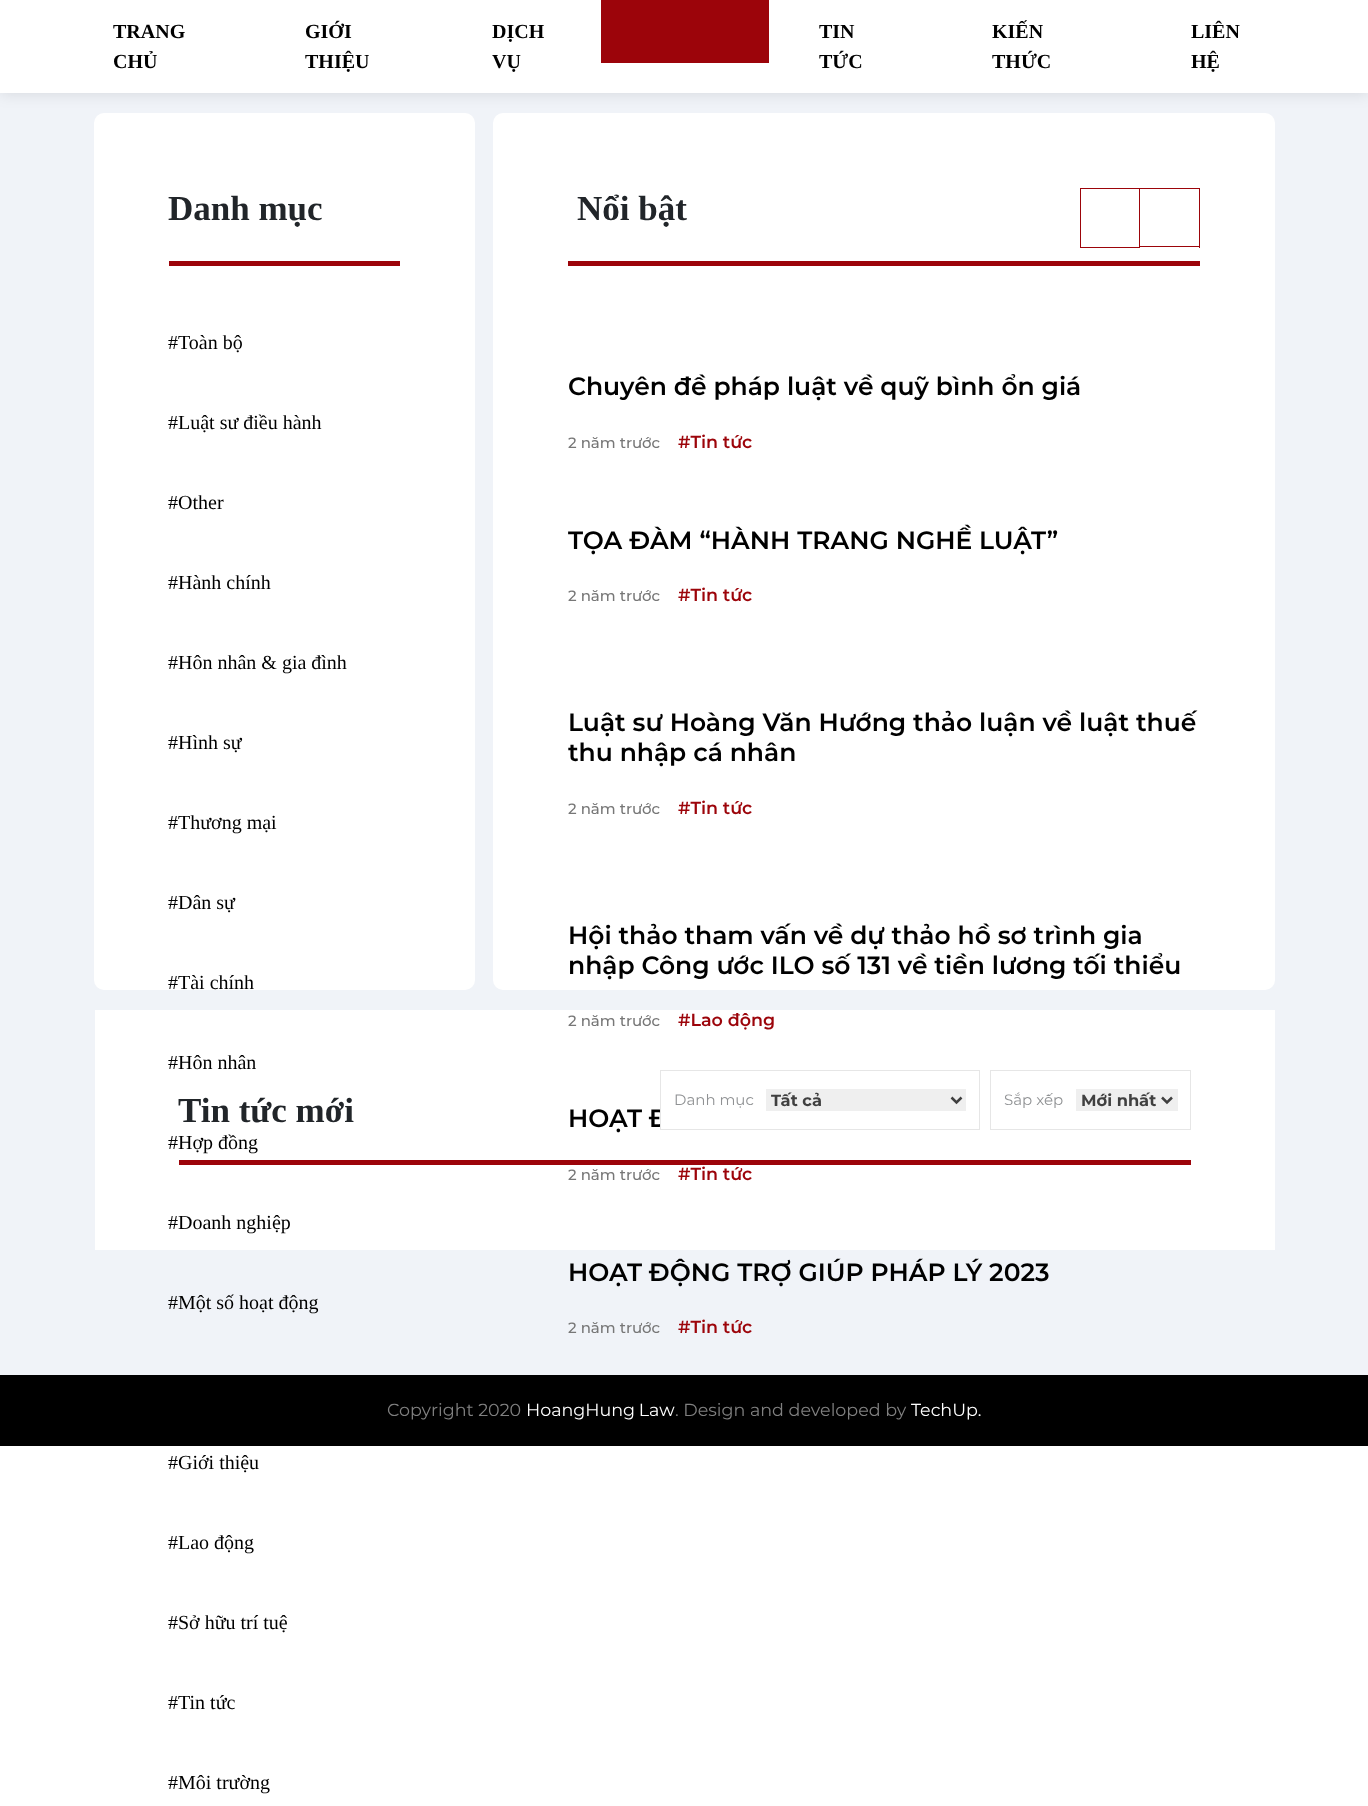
<!DOCTYPE html>
<meta charset="utf-8">
<style>body { margin: 0 } canvas { display: block }</style>
<canvas id="canvas" width="1368" height="1806"></canvas>
<script type="module">
  const canvas = document.getElementById("canvas");
  const g = canvas.getContext("2d");
  g.miterLimit = 4;
  g.fontKerning = "normal";
  function drawText(s, x, y, [font, color]) {
    g.font = font;
    g.fillStyle = color;
    g.fillText(s, x, y);
  }
  function fillBox(x, y, w, h, color) {
    g.fillStyle = color;
    g.fillRect(x, y, w, h);
  }
  function fillRounded(x, y, w, h, r, color) {
    g.fillStyle = color;
    g.beginPath();
    g.roundRect(x, y, w, h, r);
    g.fill();
  }

  const s1 = ["bold 20px Liberation Serif", "#000000"];
  const s2 = ["bold 35px Liberation Serif", "#212529"];
  const s3 = ["20px Liberation Serif", "#000000"];
  const s4 = ["600 25px Montserrat", "#000000"];
  const s5 = ["500 15px Montserrat", "#777777"];
  const s6 = ["600 17.5px Montserrat", "#9C040A"];
  const s7 = ["15px Montserrat", "#909294"];
  const s8 = ["bold 16.25px Montserrat", "#404040"];
  const s9 = ["17.5px Montserrat", "#808080"];
  const s10 = ["17.5px Montserrat", "#FFFFFF"];

  fillBox(0, 0, 1368, 1806, "#FFFFFF");
  fillBox(0, 93, 1368, 1282, "#F0F3F8");
  fillRounded(94, 113, 381, 877, 10, "#FFFFFF");
  fillRounded(493, 113, 782, 877, 10, "#FFFFFF");
  g.fillStyle = "rgba(0, 0, 0, 0.1)";
  g.filter = "blur(7.5px)";
  g.beginPath();
  g.rect(0, 1, 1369, 93);
  g.fill();
  g.filter = "none";
  fillBox(0, 0, 1368, 93, "#FFFFFF");
  fillBox(601, 0, 168, 63, "#9C040A");
  drawText("TRANG", 113, 38, s1);
  drawText("CHỦ", 113, 68, s1);
  drawText("GIỚI", 305, 38, s1);
  drawText("THIỆU", 305, 68, s1);
  drawText("DỊCH", 492, 38, s1);
  drawText("VỤ", 492, 68, s1);
  drawText("TIN", 819, 38, s1);
  drawText("TỨC", 819, 68, s1);
  drawText("KIẾN", 992, 38, s1);
  drawText("THỨC", 992, 68, s1);
  drawText("LIÊN", 1191, 38, s1);
  drawText("HỆ", 1191, 68, s1);
  fillBox(169, 261, 231, 5, "#9C040A");
  drawText("Danh mục", 168, 220, s2);
  drawText("#Toàn bộ", 168, 349, s3);
  drawText("#Luật sư điều hành", 168, 429, s3);
  drawText("#Other", 168, 509, s3);
  drawText("#Hành chính", 168, 589, s3);
  drawText("#Hôn nhân & gia đình", 168, 669, s3);
  drawText("#Hình sự", 168, 749, s3);
  drawText("#Thương mại", 168, 829, s3);
  drawText("#Dân sự", 168, 909, s3);
  drawText("#Tài chính", 168, 989, s3);
  fillBox(95, 1010, 1180, 240, "#FFFFFF");
  drawText("#Hôn nhân", 168, 1069, s3);
  drawText("#Hợp đồng", 168, 1149, s3);
  drawText("#Doanh nghiệp", 168, 1229, s3);
  drawText("#Một số hoạt động", 168, 1309, s3);
  drawText("#Giới thiệu", 168, 1469, s3);
  drawText("#Lao động", 168, 1549, s3);
  drawText("#Sở hữu trí tuệ", 168, 1629, s3);
  drawText("#Tin tức", 168, 1709, s3);
  drawText("#Môi trường", 168, 1789, s3);
  fillBox(568, 261, 632, 5, "#9C040A");
  drawText("Nổi bật", 577, 220, s2);
  g.strokeStyle = "#9C040A";
  g.strokeRect(1080.5, 188.5, 59, 59);
  fillBox(1140, 188, 60, 1, "#9C040A");
  fillBox(1199, 188, 1, 60, "#9C040A");
  fillBox(1140, 246, 60, 1, "#9C040A");
  drawText("Chuyên đề pháp luật về quỹ bình ổn giá", 568, 395, s4);
  drawText("2 năm trước", 568, 448, s5);
  drawText("#Tin tức", 678, 448, s6);
  drawText("TỌA ĐÀM “HÀNH TRANG NGHỀ LUẬT”", 568, 549, s4);
  drawText("2 năm trước", 568, 601, s5);
  drawText("#Tin tức", 678, 601, s6);
  drawText("Luật sư Hoàng Văn Hướng thảo luận về luật thuế", 568, 731, s4);
  drawText("thu nhập cá nhân", 568, 761, s4);
  drawText("2 năm trước", 568, 814, s5);
  drawText("#Tin tức", 678, 814, s6);
  drawText("Hội thảo tham vấn về dự thảo hồ sơ trình gia", 568, 944, s4);
  drawText("nhập Công ước ILO số 131 về tiền lương tối thiểu", 568, 974, s4);
  drawText("2 năm trước", 568, 1026, s5);
  drawText("#Lao động", 678, 1026, s6);
  drawText("HOẠT Đ", 568, 1127, s4);
  drawText("2 năm trước", 568, 1180, s5);
  drawText("#Tin tức", 678, 1180, s6);
  drawText("HOẠT ĐỘNG TRỢ GIÚP PHÁP LÝ 2023", 568, 1281, s4);
  drawText("2 năm trước", 568, 1333, s5);
  drawText("#Tin tức", 678, 1333, s6);
  fillBox(179, 1160, 1012, 5, "#9C040A");
  drawText("Tin tức mới", 178, 1122, s2);
  fillBox(661, 1109, 8, 18, "#FFFFFF");
  g.strokeStyle = "#E6E6E6";
  g.strokeRect(660.5, 1070.5, 319, 59);
  drawText("Danh mục", 674, 1105, s7);
  fillBox(766, 1089, 200, 22, "#EFEFEF");
  g.beginPath();
  g.moveTo(951.5, 1097.5);
  g.lineTo(956.5, 1102.5);
  g.lineTo(961.5, 1097.5);
  g.strokeStyle = "#404040";
  g.lineWidth = 2.5;
  g.stroke();
  drawText("Tất cả", 771, 1106, s8);
  g.strokeStyle = "#E6E6E6";
  g.lineWidth = 1;
  g.strokeRect(990.5, 1070.5, 200, 59);
  drawText("Sắp xếp", 1004, 1105, s7);
  fillBox(1076, 1089, 102, 22, "#EFEFEF");
  g.beginPath();
  g.moveTo(1162, 1097.5);
  g.lineTo(1167, 1102.5);
  g.lineTo(1172, 1097.5);
  g.strokeStyle = "#404040";
  g.lineWidth = 2.5;
  g.stroke();
  drawText("Mới nhất", 1081, 1106, s8);
  fillBox(0, 1375, 1368, 71, "#000000");
  drawText("Copyright 2020", 387, 1416, s9);
  g.wordSpacing = "-1px";
  drawText("HoangHung Law", 526, 1416, s10);
  g.wordSpacing = "0px";
  drawText(". Design and developed by", 675, 1416, s9);
  drawText("TechUp.", 911, 1416, s10);
</script>
